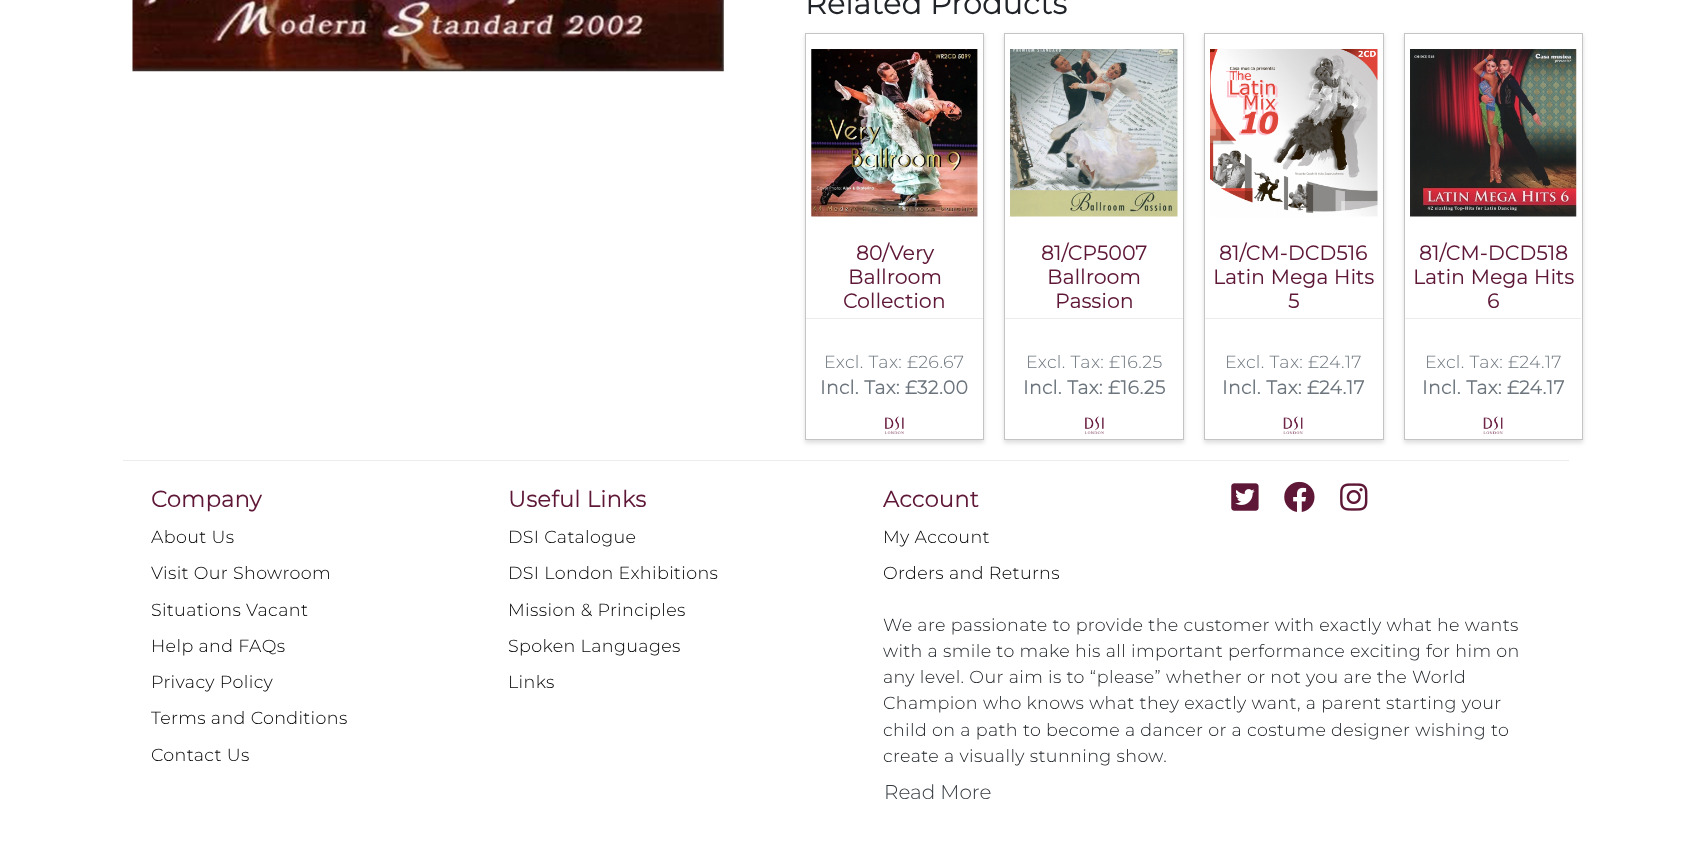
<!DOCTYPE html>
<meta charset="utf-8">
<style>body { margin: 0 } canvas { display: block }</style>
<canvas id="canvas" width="1691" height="859"></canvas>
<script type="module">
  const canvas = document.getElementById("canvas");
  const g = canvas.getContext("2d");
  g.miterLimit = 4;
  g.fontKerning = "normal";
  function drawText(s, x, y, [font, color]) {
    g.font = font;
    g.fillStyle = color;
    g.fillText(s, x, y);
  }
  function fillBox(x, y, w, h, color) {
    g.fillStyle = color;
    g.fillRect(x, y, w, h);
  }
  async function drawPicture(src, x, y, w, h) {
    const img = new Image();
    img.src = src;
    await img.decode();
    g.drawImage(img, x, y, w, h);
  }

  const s1 = ["bold 30px Montserrat", "#212529"];
  const s2 = ["bold 20px Montserrat", "#5E1737"];
  const s3 = ["300 17.5px Montserrat", "#6C757D"];
  const s4 = ["bold 18.75px Montserrat", "#6C757D"];
  const s5 = ["bold 22.5px Montserrat", "#5E1737"];
  const s6 = ["300 17.5px Montserrat", "#000000"];
  const s7 = ["300 17.5px Montserrat", "#212529"];
  const s8 = ["300 20px Montserrat", "#343A40"];

  fillBox(0, 0, 1691, 859, "#FFFFFF");
  await drawPicture("pic1.png", 132, 0, 592, 72);
  g.letterSpacing = "0.38px";
  drawText("Related Products", 805, 14, s1);
  g.save();
  g.beginPath();
  g.moveTo(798, 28);
  g.lineTo(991, 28);
  g.lineTo(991, 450);
  g.lineTo(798, 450);
  g.closePath();
  g.moveTo(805, 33);
  g.lineTo(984, 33);
  g.lineTo(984, 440);
  g.lineTo(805, 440);
  g.closePath();
  g.clip("evenodd");
  g.fillStyle = "rgba(110, 110, 110, 0.23)";
  g.filter = "blur(2px)";
  g.beginPath();
  g.rect(805, 35, 179, 408);
  g.fill();
  g.filter = "none";
  g.restore();
  g.strokeStyle = "rgba(0, 0, 0, 0.23)";
  g.strokeRect(805.5, 33.5, 178, 406);
  await drawPicture("pic2.png", 811, 49, 167, 168);
  fillBox(806, 318, 177, 1, "#ECECEC");
  drawText("80/Very", 856, 260, s2);
  drawText("Ballroom", 848, 284, s2);
  drawText("Collection", 843, 308, s2);
  drawText("Excl. Tax: £26.67", 824, 368, s3);
  drawText("Incl. Tax: £32.00", 820, 394, s4);
  await drawPicture("pic3.png", 885, 416, 19, 18);
  g.save();
  g.beginPath();
  g.moveTo(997, 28);
  g.lineTo(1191, 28);
  g.lineTo(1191, 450);
  g.lineTo(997, 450);
  g.closePath();
  g.moveTo(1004, 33);
  g.lineTo(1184, 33);
  g.lineTo(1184, 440);
  g.lineTo(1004, 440);
  g.closePath();
  g.clip("evenodd");
  g.fillStyle = "rgba(110, 110, 110, 0.23)";
  g.filter = "blur(2px)";
  g.beginPath();
  g.rect(1004, 35, 180, 408);
  g.fill();
  g.filter = "none";
  g.restore();
  g.strokeRect(1004.5, 33.5, 179, 406);
  await drawPicture("pic4.png", 1010, 49, 168, 168);
  fillBox(1005, 318, 178, 1, "#ECECEC");
  drawText("81/CP5007", 1041, 260, s2);
  drawText("Ballroom", 1047, 284, s2);
  drawText("Passion", 1055, 308, s2);
  drawText("Excl. Tax: £16.25", 1026, 368, s3);
  drawText("Incl. Tax: £16.25", 1023, 394, s4);
  await drawPicture("pic5.png", 1085, 416, 19, 18);
  g.save();
  g.beginPath();
  g.moveTo(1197, 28);
  g.lineTo(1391, 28);
  g.lineTo(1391, 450);
  g.lineTo(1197, 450);
  g.closePath();
  g.moveTo(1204, 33);
  g.lineTo(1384, 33);
  g.lineTo(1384, 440);
  g.lineTo(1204, 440);
  g.closePath();
  g.clip("evenodd");
  g.fillStyle = "rgba(110, 110, 110, 0.23)";
  g.filter = "blur(2px)";
  g.beginPath();
  g.rect(1204, 35, 180, 408);
  g.fill();
  g.filter = "none";
  g.restore();
  g.strokeRect(1204.5, 33.5, 179, 406);
  await drawPicture("pic6.png", 1210, 49, 168, 168);
  fillBox(1205, 318, 178, 1, "#ECECEC");
  drawText("81/CM-DCD516", 1219, 260, s2);
  drawText("Latin Mega Hits", 1213, 284, s2);
  drawText("5", 1288, 308, s2);
  drawText("Excl. Tax: £24.17", 1225, 368, s3);
  drawText("Incl. Tax: £24.17", 1222, 394, s4);
  await drawPicture("pic7.png", 1283, 416, 20, 18);
  g.save();
  g.beginPath();
  g.moveTo(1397, 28);
  g.lineTo(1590, 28);
  g.lineTo(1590, 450);
  g.lineTo(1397, 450);
  g.closePath();
  g.moveTo(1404, 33);
  g.lineTo(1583, 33);
  g.lineTo(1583, 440);
  g.lineTo(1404, 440);
  g.closePath();
  g.clip("evenodd");
  g.fillStyle = "rgba(110, 110, 110, 0.23)";
  g.filter = "blur(2px)";
  g.beginPath();
  g.rect(1404, 35, 179, 408);
  g.fill();
  g.filter = "none";
  g.restore();
  g.strokeRect(1404.5, 33.5, 178, 406);
  await drawPicture("pic8.png", 1410, 49, 167, 168);
  fillBox(1405, 318, 176, 1, "#ECECEC");
  drawText("81/CM-DCD518", 1419, 260, s2);
  drawText("Latin Mega Hits", 1413, 284, s2);
  drawText("6", 1487, 308, s2);
  drawText("Excl. Tax: £24.17", 1425, 368, s3);
  drawText("Incl. Tax: £24.17", 1422, 394, s4);
  await drawPicture("pic7.png", 1483, 416, 20, 18);
  fillBox(123, 460, 1446, 1, "#ECECEC");
  drawText("Company", 151, 507, s5);
  drawText("About Us", 151, 543, s6);
  drawText("Visit Our Showroom", 151, 579, s6);
  drawText("Situations Vacant", 151, 616, s6);
  drawText("Help and FAQs", 151, 652, s6);
  drawText("Privacy Policy", 151, 688, s6);
  drawText("Terms and Conditions", 151, 724, s6);
  drawText("Contact Us", 151, 761, s6);
  drawText("Useful Links", 508, 507, s5);
  drawText("DSI Catalogue", 508, 543, s6);
  drawText("DSI London Exhibitions", 508, 579, s6);
  drawText("Mission & Principles", 508, 616, s6);
  drawText("Spoken Languages", 508, 652, s6);
  drawText("Links", 508, 688, s6);
  drawText("Account", 883, 507, s5);
  drawText("My Account", 883, 543, s6);
  drawText("Orders and Returns", 883, 579, s6);
  await drawPicture("pic9.png", 1231, 483, 28, 28);
  await drawPicture("pic10.png", 1284, 481, 31, 31);
  await drawPicture("pic11.png", 1340, 483, 28, 28);
  drawText("We are passionate to provide the customer with exactly what he wants", 883, 631, s7);
  drawText("with a smile to make his all important performance exciting for him on", 883, 657, s7);
  drawText("any level. Our aim is to “please” whether or not you are the World", 883, 683, s7);
  drawText("Champion who knows what they exactly want, a parent starting your", 883, 709, s7);
  drawText("child on a path to become a dancer or a costume designer wishing to", 883, 736, s7);
  drawText("create a visually stunning show.", 883, 762, s7);
  g.letterSpacing = "0px";
  drawText("Read More", 884, 799, s8);
</script>
